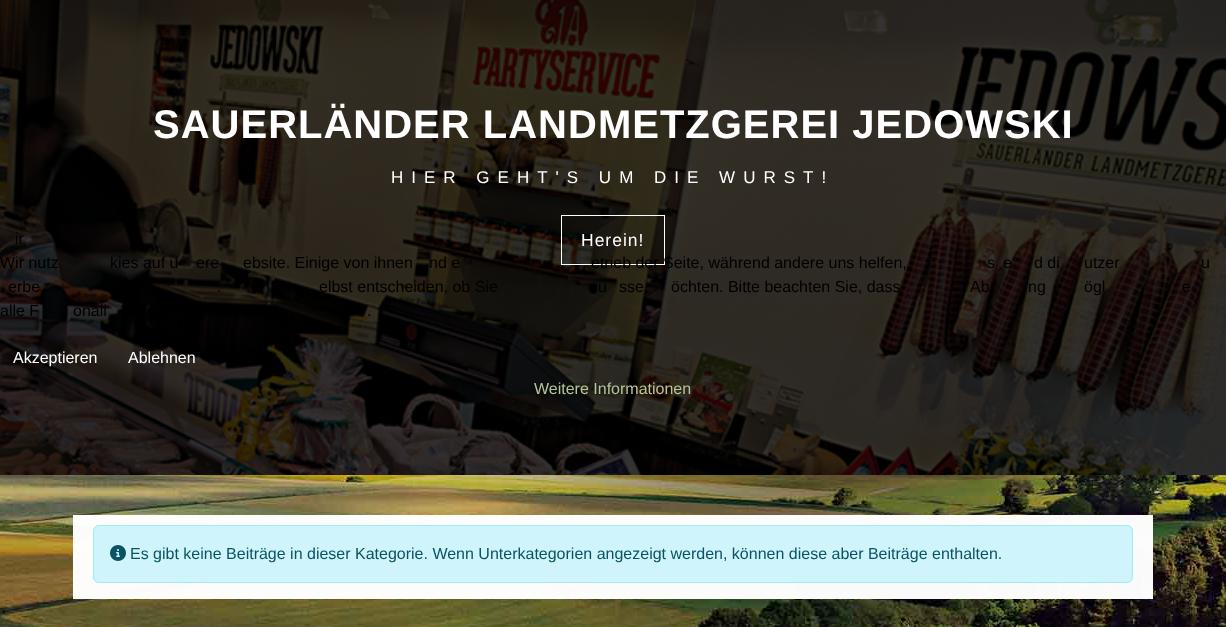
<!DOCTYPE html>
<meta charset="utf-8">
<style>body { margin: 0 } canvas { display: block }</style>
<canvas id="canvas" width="1226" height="627"></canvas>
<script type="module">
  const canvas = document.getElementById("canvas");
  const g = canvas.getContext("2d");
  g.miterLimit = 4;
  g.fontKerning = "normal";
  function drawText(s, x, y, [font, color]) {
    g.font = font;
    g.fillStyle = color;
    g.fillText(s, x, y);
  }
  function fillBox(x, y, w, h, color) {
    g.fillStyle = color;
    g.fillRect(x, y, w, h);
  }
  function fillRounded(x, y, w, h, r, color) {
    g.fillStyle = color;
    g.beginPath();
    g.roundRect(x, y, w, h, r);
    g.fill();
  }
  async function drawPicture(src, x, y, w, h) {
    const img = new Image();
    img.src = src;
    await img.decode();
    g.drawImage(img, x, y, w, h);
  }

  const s1 = ["bold 40px Liberation Sans", "#FFFFFF"];
  const s2 = ["17px Liberation Sans", "#FFFFFF"];
  const s3 = ["17.5px Liberation Sans", "#FFFFFF"];
  const s4 = ["16px Liberation Sans", "#000000"];
  const s5 = ["16px Liberation Sans", "#FFFFFF"];
  const s6 = ["16px Liberation Sans", "#B5C594"];
  const s7 = ["16px Liberation Sans", "#095463"];

  fillBox(0, 0, 1226, 627, "#FFFFFF");
  await drawPicture("pic1.png", 0, 475, 1226, 152);
  await drawPicture("pic2.png", 0, 0, 1226, 475);
  g.letterSpacing = "1px";
  drawText("SAUERLÄNDER LANDMETZGEREI JEDOWSKI", 153, 138, s1);
  g.letterSpacing = "8px";
  drawText("HIER GEHT'S UM DIE WURST!", 391, 183, s2);
  g.strokeStyle = "#FFFFFF";
  g.strokeRect(561.5, 215.5, 103, 49);
  g.letterSpacing = "1px";
  drawText("Herein!", 581, 246, s3);
  g.letterSpacing = "0px";
  drawText("ir", 15, 244, s4);
  drawText("Wir nutz", 0, 268, s4);
  drawText("kies auf u", 110, 268, s4);
  drawText("ere", 196, 268, s4);
  drawText("ebsite. Einige von ihnen", 243, 268, s4);
  drawText("nd e", 429, 268, s4);
  drawText("etrieb der Seite, während andere uns helfen,", 591, 268, s4);
  drawText("s", 987, 268, s4);
  drawText("e", 1003, 268, s4);
  drawText("d di", 1034, 268, s4);
  drawText("utzer", 1084, 268, s4);
  drawText("u", 1201, 268, s4);
  drawText("erbe", 8, 292, s4);
  drawText(".", 217, 292, s4);
  drawText("elbst entscheiden, ob Sie", 319, 292, s4);
  drawText("u", 598, 292, s4);
  drawText("sse", 619, 292, s4);
  drawText("öchten. Bitte beachten Sie, dass", 671, 292, s4);
  drawText("Ab", 970, 292, s4);
  drawText("ng", 1028, 292, s4);
  drawText("ögl", 1084, 292, s4);
  drawText("e", 1182, 292, s4);
  drawText("alle F", 0, 316, s4);
  drawText("onali", 73, 316, s4);
  drawText(".", 367, 316, s4);
  drawText("Akzeptieren", 13, 363, s5);
  drawText("Ablehnen", 128, 363, s5);
  drawText("Weitere Informationen", 534, 394, s6);
  fillBox(73, 515, 1080, 84, "rgba(255, 255, 255, 0.98)");
  fillRounded(93, 525, 1040, 58, 6, "rgba(207, 244, 252, 0.98)");
  g.beginPath();
  g.roundRect(93.5, 525.5, 1039, 57, 5.5);
  g.strokeStyle = "rgba(158, 234, 249, 0.98)";
  g.stroke();
  await drawPicture("pic3.png", 110, 545, 16, 16);
  drawText("Es gibt keine Beiträge in dieser Kategorie. Wenn Unterkategorien angezeigt werden, können diese aber Beiträge enthalten.", 130, 559, s7);
</script>
